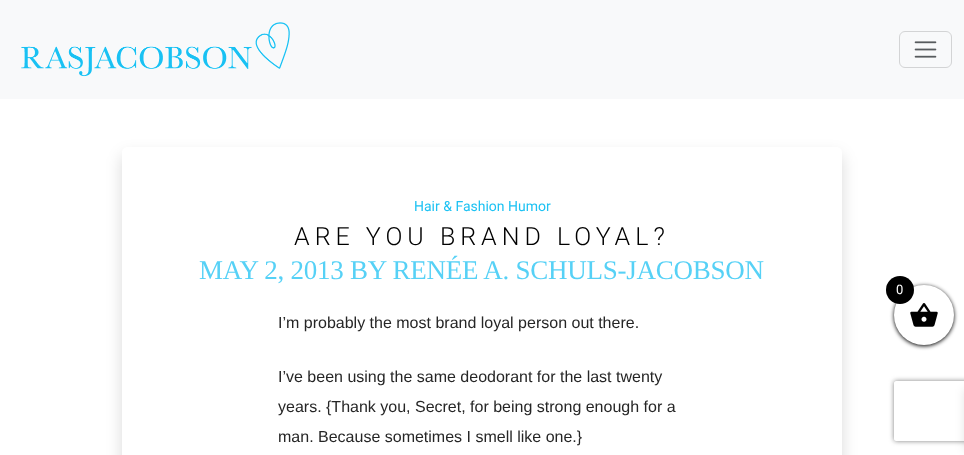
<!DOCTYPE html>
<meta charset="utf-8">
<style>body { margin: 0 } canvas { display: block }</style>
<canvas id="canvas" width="964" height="455"></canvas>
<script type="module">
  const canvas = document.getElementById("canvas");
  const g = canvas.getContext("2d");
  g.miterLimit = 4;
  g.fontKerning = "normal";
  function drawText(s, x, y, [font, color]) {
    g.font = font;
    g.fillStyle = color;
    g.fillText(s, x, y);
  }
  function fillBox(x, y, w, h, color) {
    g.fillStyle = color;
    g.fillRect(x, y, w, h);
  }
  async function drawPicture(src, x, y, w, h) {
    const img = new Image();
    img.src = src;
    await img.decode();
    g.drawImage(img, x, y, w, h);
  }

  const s1 = ["14px Roboto", "#1DC2F3"];
  const s2 = ["300 25px Roboto", "#000000"];
  const s3 = ["27px Liberation Serif", "#56D1F6"];
  const s4 = ["16px Liberation Sans", "#262626"];
  const s5 = ["13px Roboto", "#FFFFFF"];

  fillBox(0, 0, 964, 455, "#FFFFFF");
  fillBox(0, 0, 964, 99, "#F8F9FA");
  await drawPicture("pic1.png", 21, 22, 269, 55);
  g.beginPath();
  g.roundRect(899.5, 31.5, 52, 36, 5.5);
  g.strokeStyle = "#D3D4D5";
  g.stroke();
  await drawPicture("pic2.png", 914, 41, 23, 17);
  g.save();
  g.beginPath();
  g.moveTo(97, 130);
  g.lineTo(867, 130);
  g.lineTo(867, 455);
  g.lineTo(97, 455);
  g.closePath();
  g.moveTo(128, 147);
  g.lineTo(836, 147);
  g.bezierCurveTo(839.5, 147, 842, 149.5, 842, 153);
  g.lineTo(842, 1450);
  g.bezierCurveTo(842, 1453.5, 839.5, 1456, 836, 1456);
  g.lineTo(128, 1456);
  g.bezierCurveTo(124.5, 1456, 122, 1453.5, 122, 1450);
  g.lineTo(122, 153);
  g.bezierCurveTo(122, 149.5, 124.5, 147, 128, 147);
  g.closePath();
  g.clip("evenodd");
  g.fillStyle = "rgba(0, 0, 0, 0.15)";
  g.filter = "blur(8px)";
  g.beginPath();
  g.roundRect(122, 155, 720, 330, 6);
  g.fill();
  g.filter = "none";
  g.restore();
  drawText("Hair & Fashion Humor", 414, 211, s1);
  g.letterSpacing = "5px";
  drawText("ARE YOU BRAND LOYAL?", 294, 245, s2);
  g.letterSpacing = "-0.25px";
  drawText("MAY 2, 2013 BY RENÉE A. SCHULS-JACOBSON", 199, 279, s3);
  g.letterSpacing = "0px";
  drawText("I’m probably the most brand loyal person out there.", 278, 328, s4);
  drawText("I’ve been using the same deodorant for the last twenty", 278, 382, s4);
  drawText("years. {Thank you, Secret, for being strong enough for a", 278, 412, s4);
  drawText("man. Because sometimes I smell like one.}", 278, 442, s4);
  g.fillStyle = "#000000";
  g.filter = "blur(2px)";
  g.beginPath();
  g.roundRect(894, 286, 60, 60, 30);
  g.fill();
  g.filter = "none";
  g.fillStyle = "#FFFFFF";
  g.beginPath();
  g.arc(924, 315, 30, 0, Math.PI * 2);
  g.fill();
  await drawPicture("pic3.png", 910, 303, 28, 24);
  g.fillStyle = "#000000";
  g.beginPath();
  g.arc(900, 290, 14, 0, Math.PI * 2);
  g.fill();
  drawText("0", 896, 294, s5);
  g.fillStyle = "rgba(0, 0, 0, 0.1)";
  g.filter = "blur(5px)";
  g.beginPath();
  g.rect(964, 389, 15, 61);
  g.fill();
  g.filter = "none";
  g.save();
  g.beginPath();
  g.moveTo(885, 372);
  g.lineTo(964, 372);
  g.lineTo(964, 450);
  g.lineTo(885, 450);
  g.closePath();
  g.moveTo(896, 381);
  g.lineTo(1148, 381);
  g.bezierCurveTo(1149, 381, 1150, 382, 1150, 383);
  g.lineTo(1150, 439);
  g.bezierCurveTo(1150, 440, 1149, 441, 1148, 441);
  g.lineTo(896, 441);
  g.bezierCurveTo(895, 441, 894, 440, 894, 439);
  g.lineTo(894, 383);
  g.bezierCurveTo(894, 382, 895, 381, 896, 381);
  g.closePath();
  g.clip("evenodd");
  g.fillStyle = "#808080";
  g.filter = "blur(2.5px)";
  g.beginPath();
  g.roundRect(894, 381, 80, 60, 2);
  g.fill();
  g.filter = "none";
  g.restore();
</script>
